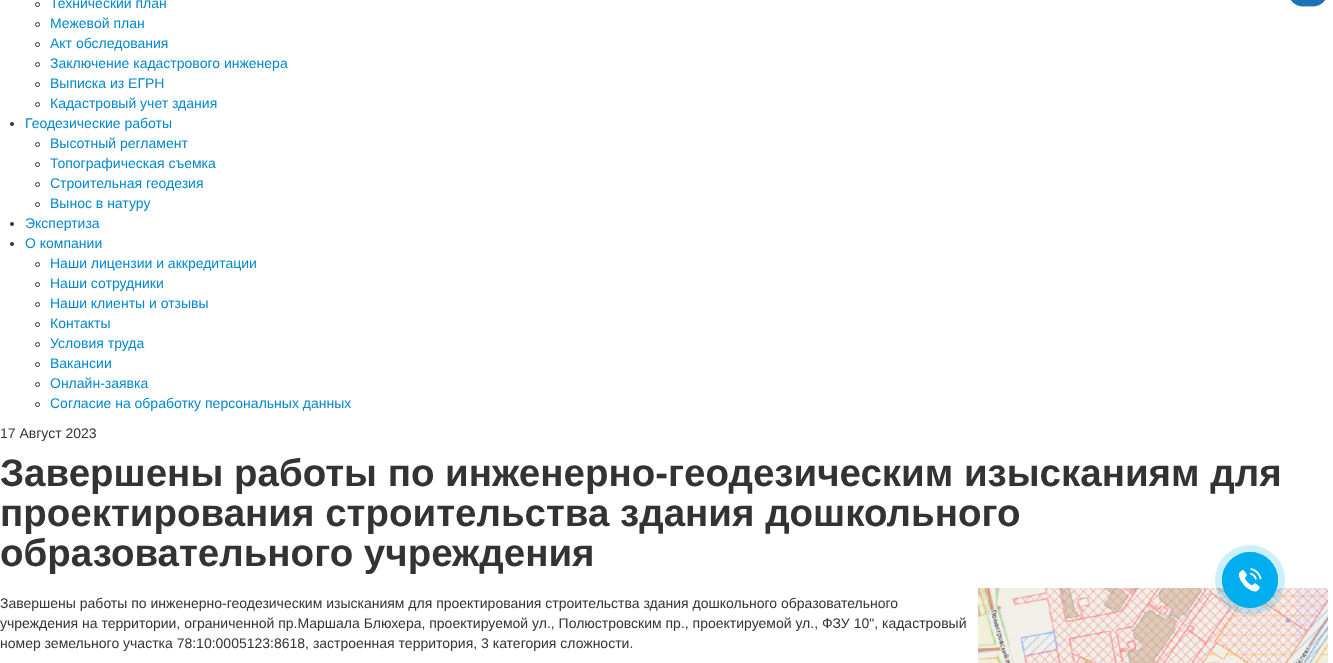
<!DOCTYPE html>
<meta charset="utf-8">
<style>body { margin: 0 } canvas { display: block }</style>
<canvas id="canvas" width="1333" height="663"></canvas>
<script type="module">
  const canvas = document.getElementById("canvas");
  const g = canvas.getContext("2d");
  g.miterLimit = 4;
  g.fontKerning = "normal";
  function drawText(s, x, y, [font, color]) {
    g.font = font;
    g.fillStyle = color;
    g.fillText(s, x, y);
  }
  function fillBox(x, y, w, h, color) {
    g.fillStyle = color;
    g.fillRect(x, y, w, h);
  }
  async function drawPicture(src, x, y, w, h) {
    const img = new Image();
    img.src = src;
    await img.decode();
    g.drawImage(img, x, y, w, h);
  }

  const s1 = ["14px Liberation Sans", "#0088CC"];
  const s2 = ["14px Liberation Sans", "#333333"];
  const s3 = ["bold 38.5px Liberation Sans", "#333333"];

  fillBox(0, 0, 1333, 663, "#FFFFFF");
  g.beginPath();
  g.arc(37.5, 4.5, 2, 0, Math.PI * 2);
  g.strokeStyle = "#333333";
  g.stroke();
  drawText("Технический план", 50, 8, s1);
  g.beginPath();
  g.arc(37.5, 24.5, 2, 0, Math.PI * 2);
  g.stroke();
  drawText("Межевой план", 50, 28, s1);
  g.beginPath();
  g.arc(37.5, 44.5, 2, 0, Math.PI * 2);
  g.stroke();
  drawText("Акт обследования", 50, 48, s1);
  g.beginPath();
  g.arc(37.5, 64.5, 2, 0, Math.PI * 2);
  g.stroke();
  drawText("Заключение кадастрового инженера", 50, 68, s1);
  g.beginPath();
  g.arc(37.5, 84.5, 2, 0, Math.PI * 2);
  g.stroke();
  drawText("Выписка из ЕГРН", 50, 88, s1);
  g.beginPath();
  g.arc(37.5, 104.5, 2, 0, Math.PI * 2);
  g.stroke();
  drawText("Кадастровый учет здания", 50, 108, s1);
  g.fillStyle = "#333333";
  g.beginPath();
  g.arc(12, 124, 2, 0, Math.PI * 2);
  g.fill();
  drawText("Геодезические работы", 25, 128, s1);
  g.beginPath();
  g.arc(37.5, 144.5, 2, 0, Math.PI * 2);
  g.stroke();
  drawText("Высотный регламент", 50, 148, s1);
  g.beginPath();
  g.arc(37.5, 164.5, 2, 0, Math.PI * 2);
  g.stroke();
  drawText("Топографическая съемка", 50, 168, s1);
  g.beginPath();
  g.arc(37.5, 184.5, 2, 0, Math.PI * 2);
  g.stroke();
  drawText("Строительная геодезия", 50, 188, s1);
  g.beginPath();
  g.arc(37.5, 204.5, 2, 0, Math.PI * 2);
  g.stroke();
  drawText("Вынос в натуру", 50, 208, s1);
  g.fillStyle = "#333333";
  g.beginPath();
  g.arc(12, 224, 2, 0, Math.PI * 2);
  g.fill();
  drawText("Экспертиза", 25, 228, s1);
  g.fillStyle = "#333333";
  g.beginPath();
  g.arc(12, 244, 2, 0, Math.PI * 2);
  g.fill();
  drawText("О компании", 25, 248, s1);
  g.beginPath();
  g.arc(37.5, 264.5, 2, 0, Math.PI * 2);
  g.stroke();
  drawText("Наши лицензии и аккредитации", 50, 268, s1);
  g.beginPath();
  g.arc(37.5, 284.5, 2, 0, Math.PI * 2);
  g.stroke();
  drawText("Наши сотрудники", 50, 288, s1);
  g.beginPath();
  g.arc(37.5, 304.5, 2, 0, Math.PI * 2);
  g.stroke();
  drawText("Наши клиенты и отзывы", 50, 308, s1);
  g.beginPath();
  g.arc(37.5, 324.5, 2, 0, Math.PI * 2);
  g.stroke();
  drawText("Контакты", 50, 328, s1);
  g.beginPath();
  g.arc(37.5, 344.5, 2, 0, Math.PI * 2);
  g.stroke();
  drawText("Условия труда", 50, 348, s1);
  g.beginPath();
  g.arc(37.5, 364.5, 2, 0, Math.PI * 2);
  g.stroke();
  drawText("Вакансии", 50, 368, s1);
  g.beginPath();
  g.arc(37.5, 384.5, 2, 0, Math.PI * 2);
  g.stroke();
  drawText("Онлайн-заявка", 50, 388, s1);
  g.beginPath();
  g.arc(37.5, 404.5, 2, 0, Math.PI * 2);
  g.stroke();
  drawText("Согласие на обработку персональных данных", 50, 408, s1);
  await drawPicture("pic1.png", 1290, 0, 36, 7);
  drawText("17 Август 2023", 0, 438, s2);
  drawText("Завершены работы по инженерно-геодезическим изысканиям для", 0, 486, s3);
  drawText("проектирования строительства здания дошкольного", 0, 526, s3);
  drawText("образовательного учреждения", 0, 566, s3);
  drawText("Завершены работы по инженерно-геодезическим изысканиям для проектирования строительства здания дошкольного образовательного", 0, 608, s2);
  drawText("учреждения на территории, ограниченной пр.Маршала Блюхера, проектируемой ул., Полюстровским пр., проектируемой ул., ФЗУ 10\", кадастровый", 0, 628, s2);
  drawText("номер земельного участка 78:10:0005123:8618, застроенная территория, 3 категория сложности.", 0, 648, s2);
  await drawPicture("pic2.png", 978, 588, 350, 75);
  g.fillStyle = "rgba(0, 174, 239, 0.2)";
  g.beginPath();
  g.arc(1250, 580, 35, 0, Math.PI * 2);
  g.fill();
  g.beginPath();
  g.arc(1250, 580, 27.6, 0, Math.PI * 2);
  g.strokeStyle = "#00AEEF";
  g.lineWidth = 0.8;
  g.stroke();
  g.fillStyle = "#00AEEF";
  g.beginPath();
  g.arc(1250, 580, 28, 0, Math.PI * 2);
  g.fill();
  await drawPicture("pic3.png", 1238, 568, 24, 24);
</script>
